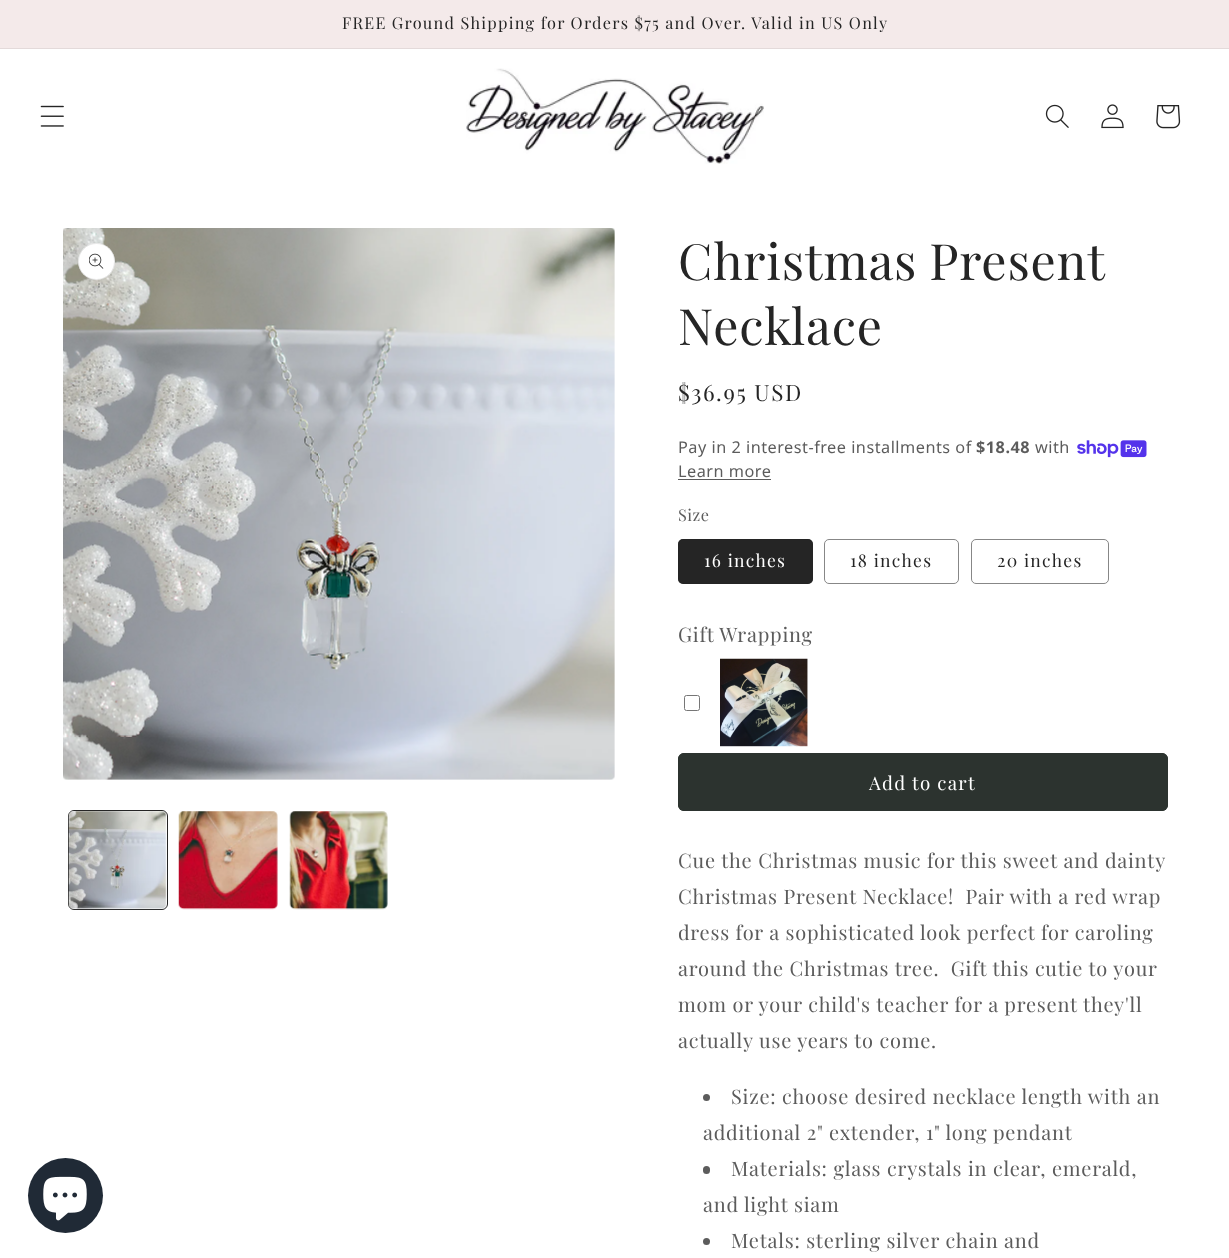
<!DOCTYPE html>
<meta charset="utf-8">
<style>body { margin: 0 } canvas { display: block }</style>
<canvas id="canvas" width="1229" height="1258"></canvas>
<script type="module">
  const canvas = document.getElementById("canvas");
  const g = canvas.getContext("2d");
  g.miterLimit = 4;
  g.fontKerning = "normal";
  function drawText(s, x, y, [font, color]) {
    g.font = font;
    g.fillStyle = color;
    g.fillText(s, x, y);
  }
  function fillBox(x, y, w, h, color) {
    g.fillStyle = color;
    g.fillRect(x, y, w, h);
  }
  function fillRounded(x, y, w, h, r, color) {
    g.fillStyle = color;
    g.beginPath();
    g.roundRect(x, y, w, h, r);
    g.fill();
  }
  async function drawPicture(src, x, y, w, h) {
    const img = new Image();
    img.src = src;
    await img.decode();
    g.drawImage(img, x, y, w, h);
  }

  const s1 = ["16.25px Playfair Display", "#252525"];
  const s2 = ["50px Playfair Display", "#252525"];
  const s3 = ["22.5px Playfair Display", "#252525"];
  const s4 = ["16.25px Noto Sans", "#5C5C5C"];
  const s5 = ["bold 16.25px Noto Sans", "#5C5C5C"];
  const s6 = ["16.25px Playfair Display", "#5C5C5C"];
  const s7 = ["17.5px Playfair Display", "#FFFFFF"];
  const s8 = ["17.5px Playfair Display", "#252525"];
  const s9 = ["20px Playfair Display", "#5C5C5C"];
  const s10 = ["18.75px Playfair Display", "#FFFFFF"];

  fillBox(0, 0, 1229, 1258, "#FFFFFF");
  fillBox(0, 0, 1229, 48, "#F4EAEA");
  fillBox(0, 48, 1229, 1, "#E3DADA");
  g.letterSpacing = "1.25px";
  drawText("FREE Ground Shipping for Orders $75 and Over. Valid in US Only", 342, 29, s1);
  await drawPicture("pic1.png", 40, 105, 24, 22);
  await drawPicture("pic2.png", 466, 68, 298, 96);
  await drawPicture("pic3.png", 1045, 104, 24, 24);
  await drawPicture("pic4.png", 1101, 104, 23, 25);
  await drawPicture("pic5.png", 1156, 105, 25, 24);
  g.fillStyle = "#202A36";
  g.beginPath();
  g.arc(65.5, 1195.5, 37.5, 0, Math.PI * 2);
  g.fill();
  await drawPicture("pic6.png", 43, 1176, 44, 45);
  await drawPicture("pic7.png", 63, 228, 552, 552);
  g.fillStyle = "#FFFFFF";
  g.beginPath();
  g.arc(96.5, 261.5, 18.5, 0, Math.PI * 2);
  g.fill();
  g.beginPath();
  g.arc(96.5, 261.5, 18, 0, Math.PI * 2);
  g.strokeStyle = "rgba(37, 37, 37, 0.1)";
  g.stroke();
  await drawPicture("pic8.png", 89, 253, 15, 16);
  g.beginPath();
  g.roundRect(68.5, 810.5, 99, 99, 5.5);
  g.strokeStyle = "#252525";
  g.stroke();
  await drawPicture("pic9.png", 68, 811, 99, 99);
  await drawPicture("pic10.png", 178, 811, 100, 99);
  await drawPicture("pic11.png", 289, 811, 99, 99);
  g.letterSpacing = "0.75px";
  g.wordSpacing = "-1px";
  drawText("Christmas Present", 678, 280, s2);
  g.wordSpacing = "0px";
  drawText("Necklace", 678, 345, s2);
  g.letterSpacing = "1.6px";
  drawText("$36.95 USD", 678, 401, s3);
  g.letterSpacing = "0.5px";
  drawText("Pay in 2 interest-free installments of", 678, 453, s4);
  drawText("$18.48", 976, 453, s5);
  drawText("with", 1035, 453, s4);
  await drawPicture("pic12.png", 1077, 440, 70, 18);
  drawText("Learn more", 678, 477, s4);
  fillBox(678, 479, 93, 1, "#5C5C5C");
  drawText("Size", 678, 521, s6);
  fillRounded(678, 539, 135, 45, 5, "#252525");
  g.beginPath();
  g.roundRect(678.5, 539.5, 134, 44, 4.5);
  g.strokeStyle = "rgba(37, 37, 37, 0.55)";
  g.stroke();
  g.letterSpacing = "1.25px";
  drawText("16 inches", 704, 567, s7);
  g.beginPath();
  g.roundRect(824.5, 539.5, 134, 44, 4.5);
  g.strokeStyle = "#878787";
  g.stroke();
  drawText("18 inches", 850, 567, s8);
  g.beginPath();
  g.roundRect(971.5, 539.5, 137, 44, 4.5);
  g.stroke();
  drawText("20 inches", 997, 567, s8);
  g.letterSpacing = "0.75px";
  drawText("Gift Wrapping", 678, 642, s9);
  g.beginPath();
  g.roundRect(684.5, 695.5, 15, 15, 2);
  g.strokeStyle = "#767676";
  g.stroke();
  await drawPicture("pic13.png", 720, 658, 88, 89);
  fillRounded(678, 753, 490, 58, 6, "#2C332F");
  g.beginPath();
  g.roundRect(678.5, 753.5, 489, 57, 5.5);
  g.strokeStyle = "#2C332F";
  g.stroke();
  g.letterSpacing = "1.25px";
  drawText("Add to cart", 869, 790, s10);
  g.letterSpacing = "0.75px";
  drawText("Cue the Christmas music for this sweet and dainty", 678, 868, s9);
  drawText("Christmas Present Necklace!  Pair with a red wrap", 678, 904, s9);
  drawText("dress for a sophisticated look perfect for caroling", 678, 940, s9);
  drawText("around the Christmas tree.  Gift this cutie to your", 678, 976, s9);
  drawText("mom or your child's teacher for a present they'll", 678, 1012, s9);
  drawText("actually use years to come.", 678, 1048, s9);
  g.beginPath();
  g.arc(706.5, 1097.5, 3.5, 0, Math.PI * 2);
  g.fill();
  drawText("Size: choose desired necklace length with an", 731, 1104, s9);
  drawText("additional 2\" extender, 1\" long pendant", 703, 1140, s9);
  fillRounded(703, 1166, 7, 8, 3.5, "#5C5C5C");
  drawText("Materials: glass crystals in clear, emerald,", 731, 1176, s9);
  drawText("and light siam", 703, 1212, s9);
  g.beginPath();
  g.arc(706.5, 1241.5, 3.5, 0, Math.PI * 2);
  g.fill();
  drawText("Metals: sterling silver chain and", 731, 1248, s9);
</script>
